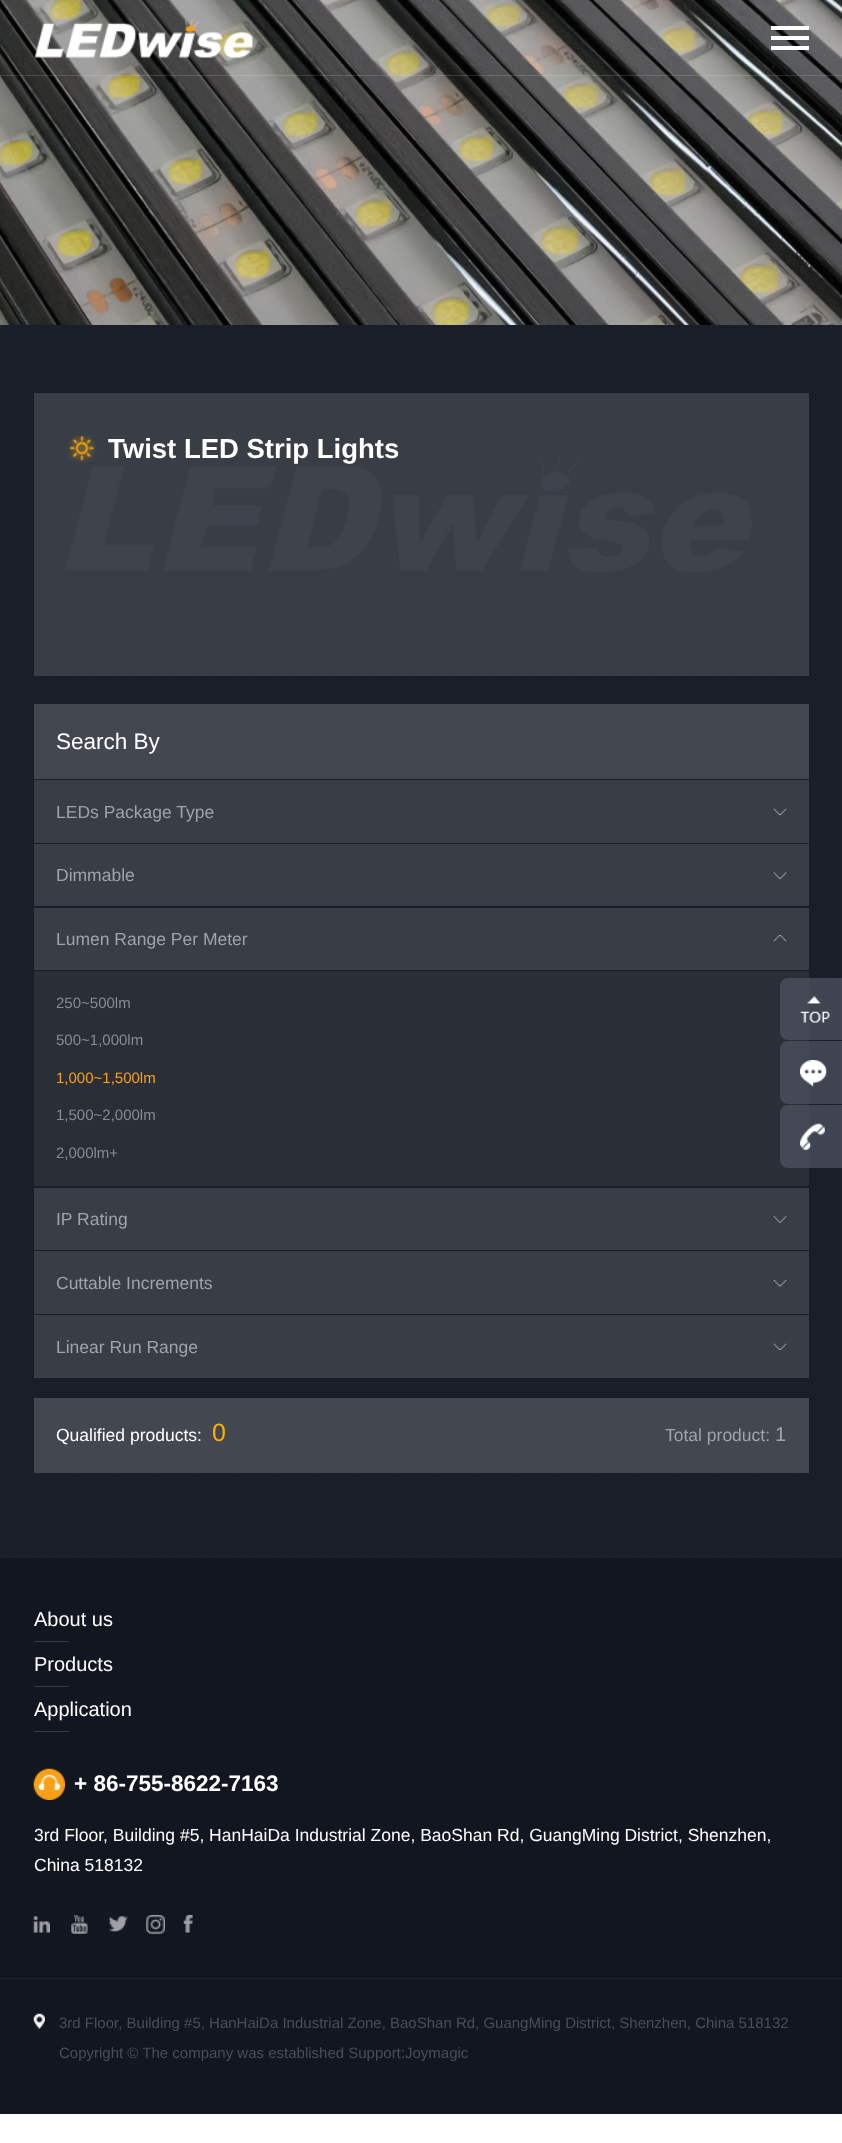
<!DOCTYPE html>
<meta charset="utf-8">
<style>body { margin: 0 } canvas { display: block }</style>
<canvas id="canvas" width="842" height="2143"></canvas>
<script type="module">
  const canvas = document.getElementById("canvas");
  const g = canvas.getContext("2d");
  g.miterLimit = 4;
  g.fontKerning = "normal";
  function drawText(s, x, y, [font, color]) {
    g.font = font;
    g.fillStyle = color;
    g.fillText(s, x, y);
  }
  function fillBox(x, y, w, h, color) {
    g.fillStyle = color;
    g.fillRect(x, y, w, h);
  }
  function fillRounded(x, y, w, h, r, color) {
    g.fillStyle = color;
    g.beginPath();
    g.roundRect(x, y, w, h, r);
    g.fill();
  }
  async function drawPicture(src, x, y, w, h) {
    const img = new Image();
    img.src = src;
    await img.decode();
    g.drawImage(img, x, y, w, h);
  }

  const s1 = ["bold 27.5px Liberation Sans", "#FFFFFF"];
  const s2 = ["22.5px Liberation Sans", "#FFFFFF"];
  const s3 = ["17.5px Liberation Sans", "#A0A3A8"];
  const s4 = ["15px Liberation Sans", "#878C94"];
  const s5 = ["15px Liberation Sans", "#FAA017"];
  const s6 = ["17.5px Liberation Sans", "#FFFFFF"];
  const s7 = ["25px Liberation Sans", "#FFAE01"];
  const s8 = ["20px Liberation Sans", "#A0A3A8"];
  const s9 = ["20px Liberation Sans", "#FFFFFF"];
  const s10 = ["bold 22.5px Liberation Sans", "#FFFFFF"];
  const s11 = ["15px Liberation Sans", "#484E59"];

  fillBox(0, 0, 842, 2143, "#FFFFFF");
  await drawPicture("pic2.png", 0, 0, 842, 325);
  await drawPicture("pic1.png", 34, 19, 219, 39);
  fillBox(771, 36, 38, 4, "#FFFFFF");
  fillBox(771, 26, 38, 4, "#FFFFFF");
  fillBox(771, 46, 38, 4, "#FFFFFF");
  fillBox(0, 75, 842, 1, "rgba(255, 255, 255, 0.14)");
  fillBox(0, 325, 842, 1233, "#1B202A");
  await drawPicture("pic3.png", 0, 325, 841, 1231);
  fillBox(34, 393, 775, 283, "#383D46");
  await drawPicture("pic4.png", 65, 452, 687, 120);
  await drawPicture("pic5.png", 66, 433, 31, 31);
  drawText("Twist LED Strip Lights", 108, 458, s1);
  fillBox(34, 704, 775, 75, "#434750");
  drawText("Search By", 56, 749, s2);
  fillBox(34, 780, 775, 63, "#383D46");
  drawText("LEDs Package Type", 56, 818, s3);
  await drawPicture("pic6.png", 773, 808, 14, 7);
  fillBox(34, 844, 775, 62, "#383D46");
  drawText("Dimmable", 56, 881, s3);
  await drawPicture("pic7.png", 773, 872, 14, 7);
  fillBox(34, 908, 775, 62, "#383D46");
  drawText("Lumen Range Per Meter", 56, 945, s3);
  await drawPicture("pic8.png", 773, 935, 14, 7);
  fillBox(34, 971, 775, 215, "#292E37");
  drawText("250~500lm", 56, 1008, s4);
  drawText("500~1,000lm", 56, 1045, s4);
  drawText("1,000~1,500lm", 56, 1083, s5);
  drawText("1,500~2,000lm", 56, 1120, s4);
  drawText("2,000lm+", 56, 1158, s4);
  fillBox(34, 1188, 775, 62, "#383D46");
  drawText("IP Rating", 56, 1225, s3);
  await drawPicture("pic9.png", 773, 1216, 14, 7);
  fillBox(34, 1251, 775, 63, "#383D46");
  drawText("Cuttable Increments", 56, 1289, s3);
  await drawPicture("pic10.png", 773, 1280, 14, 7);
  fillBox(34, 1315, 775, 63, "#383D46");
  drawText("Linear Run Range", 56, 1353, s3);
  await drawPicture("pic6.png", 773, 1343, 14, 7);
  fillBox(34, 1398, 775, 75, "#434750");
  drawText("Qualified products:", 56, 1441, s6);
  drawText("0", 212, 1441, s7);
  drawText("Total product:", 665, 1441, s3);
  drawText("1", 775, 1441, s8);
  fillRounded(780, 978, 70, 62, 8, "rgba(80, 86, 99, 0.7)");
  await drawPicture("pic11.png", 800, 996, 30, 27);
  fillRounded(780, 1041, 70, 63, 8, "rgba(80, 86, 99, 0.7)");
  await drawPicture("pic12.png", 800, 1060, 27, 27);
  fillRounded(780, 1105, 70, 63, 8, "rgba(80, 86, 99, 0.7)");
  await drawPicture("pic13.png", 800, 1123, 25, 27);
  fillBox(0, 1558, 842, 556, "#111620");
  fillBox(0, 1978, 842, 1, "#1C222F");
  drawText("About us", 34, 1626, s9);
  fillBox(34, 1641, 35, 1, "#3A3A3A");
  drawText("Products", 34, 1671, s9);
  fillBox(34, 1686, 35, 1, "#3A3A3A");
  drawText("Application", 34, 1716, s9);
  fillBox(34, 1731, 35, 1, "#3A3A3A");
  await drawPicture("pic14.png", 33, 1768, 32, 32);
  drawText("+ 86-755-8622-7163", 74, 1791, s10);
  drawText("3rd Floor, Building #5, HanHaiDa Industrial Zone, BaoShan Rd, GuangMing District, Shenzhen,", 34, 1841, s6);
  drawText("China 518132", 34, 1871, s6);
  await drawPicture("pic15.png", 33, 1916, 17, 17);
  await drawPicture("pic16.png", 71, 1915, 17, 19);
  await drawPicture("pic17.png", 108, 1916, 20, 16);
  await drawPicture("pic18.png", 146, 1915, 19, 19);
  await drawPicture("pic19.png", 183, 1915, 10, 18);
  await drawPicture("pic20.png", 33, 2013, 12, 16);
  drawText("3rd Floor, Building #5, HanHaiDa Industrial Zone, BaoShan Rd, GuangMing District, Shenzhen, China 518132", 59, 2028, s11);
  drawText("Copyright © The company was established Support:Joymagic", 59, 2058, s11);
</script>
